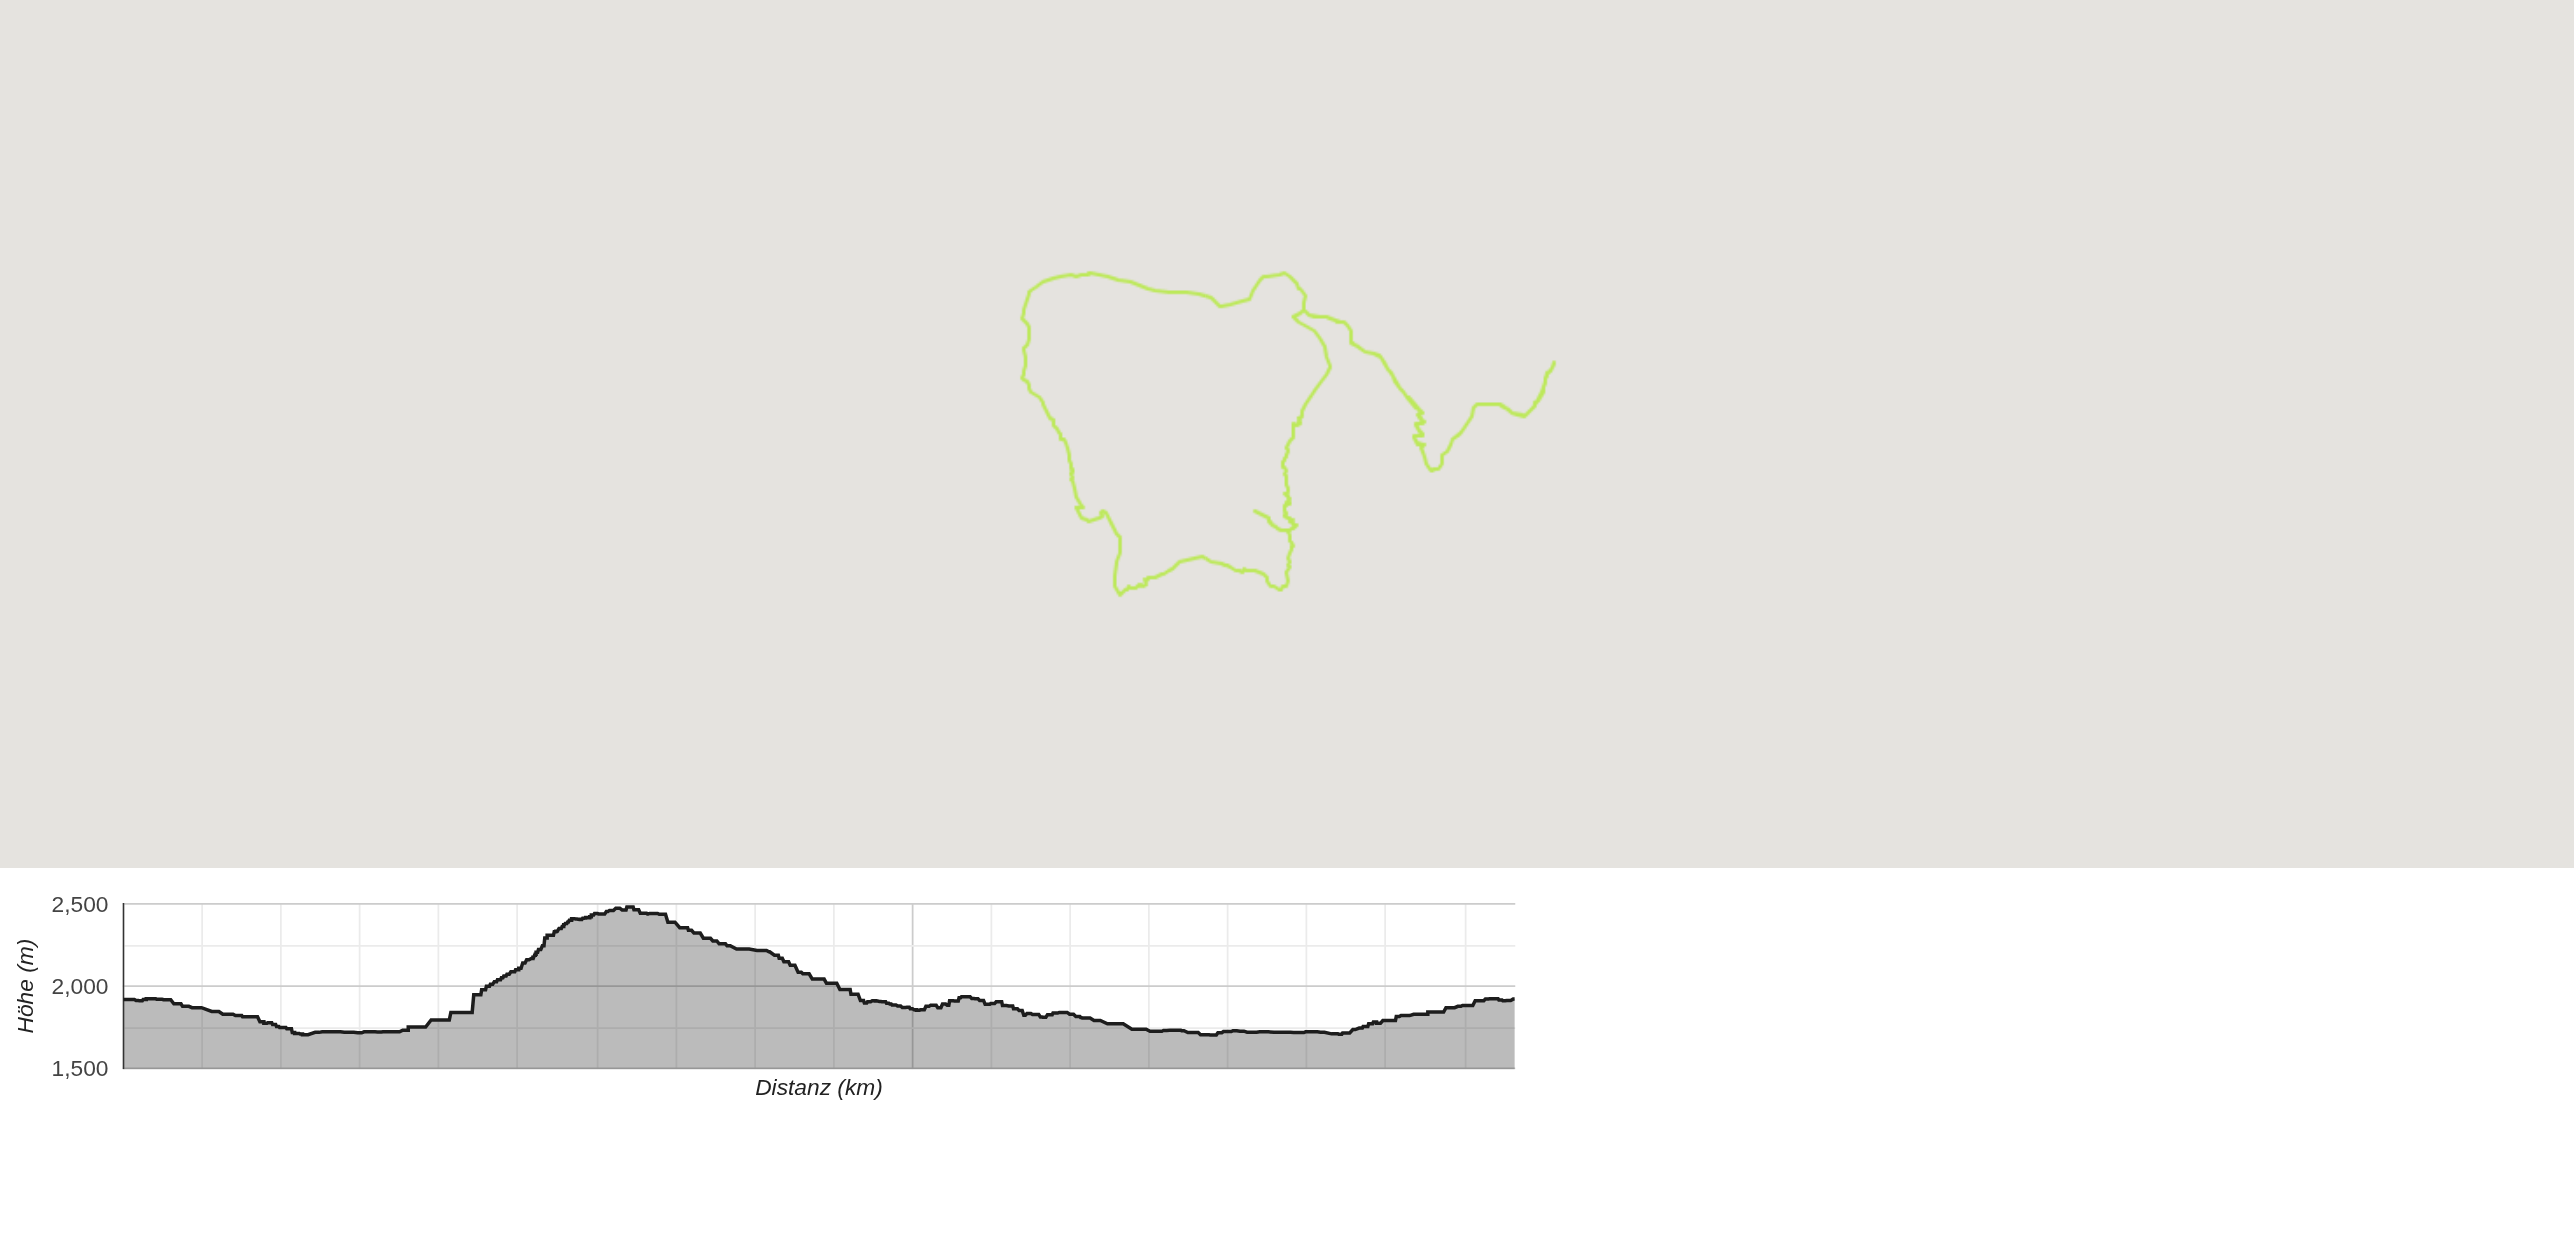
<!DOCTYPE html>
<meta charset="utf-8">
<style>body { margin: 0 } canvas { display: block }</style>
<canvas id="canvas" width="2574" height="1240"></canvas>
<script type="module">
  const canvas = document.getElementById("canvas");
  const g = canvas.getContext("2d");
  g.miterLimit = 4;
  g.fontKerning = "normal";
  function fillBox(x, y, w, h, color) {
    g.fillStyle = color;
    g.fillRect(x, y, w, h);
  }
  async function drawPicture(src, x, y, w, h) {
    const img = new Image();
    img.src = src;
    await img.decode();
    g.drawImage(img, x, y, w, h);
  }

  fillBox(0, 0, 2574, 1240, "#FFFFFF");
  fillBox(0, 0, 2574, 868, "#E5E3DF");
  await drawPicture("pic2.png", 1205, 270, 352, 322);
  await drawPicture("pic1.png", 1019, 270, 187, 328);
  await drawPicture("pic3.png", 17, 897, 1499, 203);
</script>
